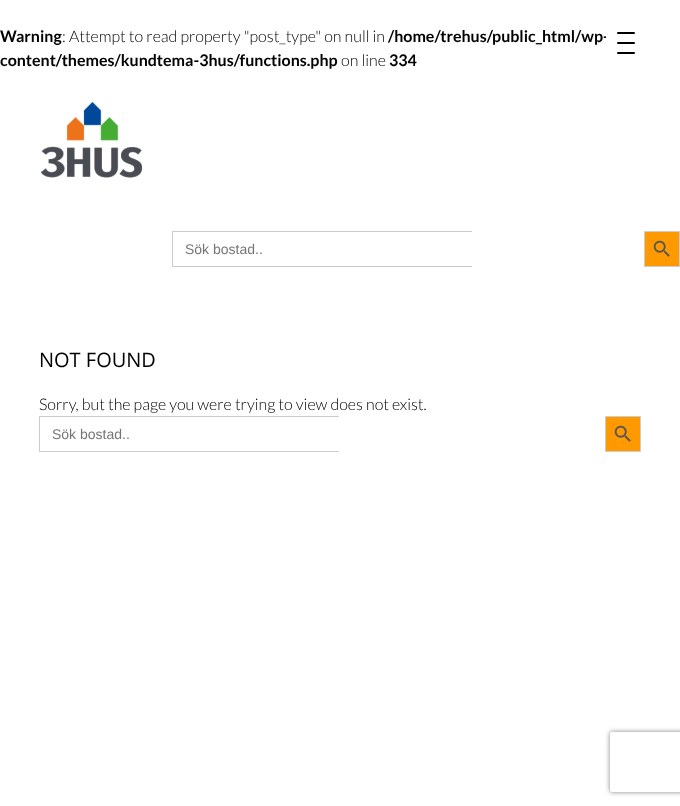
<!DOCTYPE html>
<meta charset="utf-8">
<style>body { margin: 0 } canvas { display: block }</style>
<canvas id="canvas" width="680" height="806"></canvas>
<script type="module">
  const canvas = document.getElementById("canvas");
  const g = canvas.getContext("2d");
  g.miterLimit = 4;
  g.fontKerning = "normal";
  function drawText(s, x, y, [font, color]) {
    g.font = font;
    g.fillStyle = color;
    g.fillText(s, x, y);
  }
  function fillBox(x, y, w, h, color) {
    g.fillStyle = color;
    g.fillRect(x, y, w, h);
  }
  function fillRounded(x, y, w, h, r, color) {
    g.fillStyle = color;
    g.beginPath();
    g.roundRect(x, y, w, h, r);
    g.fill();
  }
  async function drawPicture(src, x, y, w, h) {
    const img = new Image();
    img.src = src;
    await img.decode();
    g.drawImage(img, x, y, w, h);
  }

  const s1 = ["bold 16px Lato", "#000000"];
  const s2 = ["300 16px Lato", "#000000"];
  const s3 = ["14px Liberation Sans", "#757575"];
  const s4 = ["20px Open Sans", "#000000"];

  fillBox(0, 0, 680, 806, "#FFFFFF");
  drawText("Warning", 0, 42, s1);
  drawText(": Attempt to read property \"post_type\" on null in", 62, 42, s2);
  drawText("/home/trehus/public_html/wp-", 388, 42, s1);
  drawText("content/themes/kundtema-3hus/functions.php", 0, 66, s1);
  drawText("on line", 341, 66, s2);
  drawText("334", 389, 66, s1);
  fillRounded(606, 15, 40, 40, 5, "#FFFFFF");
  fillRounded(617, 42, 18, 2, 1, "#000000");
  fillRounded(617, 32, 18, 2, 1, "#000000");
  fillRounded(617, 52, 18, 2, 1, "#000000");
  await drawPicture("pic1.png", 41, 102, 101, 76);
  fillBox(172, 231, 300, 1, "#CCCCCC");
  fillBox(172, 266, 300, 1, "#CCCCCC");
  fillBox(172, 231, 1, 36, "#CCCCCC");
  drawText("Sök bostad..", 185, 254, s3);
  g.fillStyle = "#FF9900";
  g.beginPath();
  g.rect(644.5, 231.5, 35, 35);
  g.fill();
  g.strokeStyle = "#CCCCCC";
  g.stroke();
  await drawPicture("pic2.png", 653, 240, 17, 17);
  drawText("NOT FOUND", 39, 367, s4);
  drawText("Sorry, but the page you were trying to view does not exist.", 39, 410, s2);
  fillBox(39, 416, 300, 1, "#CCCCCC");
  fillBox(39, 451, 300, 1, "#CCCCCC");
  fillBox(39, 416, 1, 36, "#CCCCCC");
  drawText("Sök bostad..", 52, 439, s3);
  g.fillStyle = "#FF9900";
  g.beginPath();
  g.rect(605.5, 416.5, 35, 35);
  g.fill();
  g.stroke();
  await drawPicture("pic2.png", 614, 425, 17, 17);
  g.save();
  g.beginPath();
  g.moveTo(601, 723);
  g.lineTo(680, 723);
  g.lineTo(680, 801);
  g.lineTo(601, 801);
  g.closePath();
  g.moveTo(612, 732);
  g.lineTo(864, 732);
  g.bezierCurveTo(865, 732, 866, 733, 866, 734);
  g.lineTo(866, 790);
  g.bezierCurveTo(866, 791, 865, 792, 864, 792);
  g.lineTo(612, 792);
  g.bezierCurveTo(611, 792, 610, 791, 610, 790);
  g.lineTo(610, 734);
  g.bezierCurveTo(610, 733, 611, 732, 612, 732);
  g.closePath();
  g.clip("evenodd");
  g.fillStyle = "#808080";
  g.filter = "blur(2.5px)";
  g.beginPath();
  g.roundRect(610, 732, 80, 60, 2);
  g.fill();
  g.filter = "none";
  g.restore();
</script>
